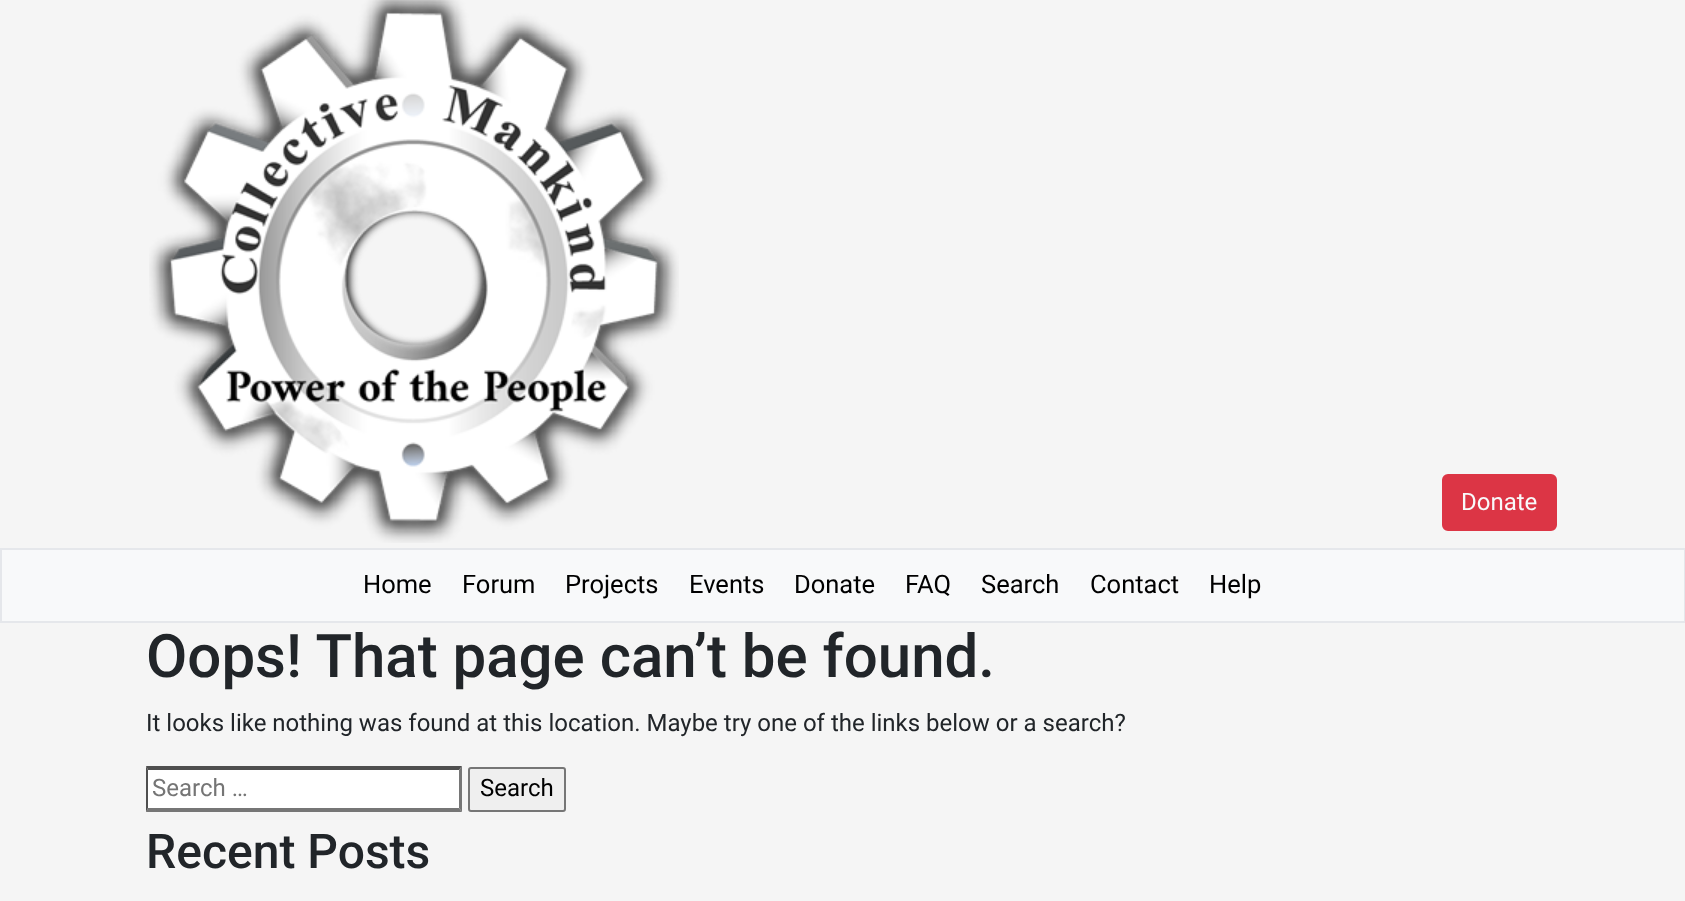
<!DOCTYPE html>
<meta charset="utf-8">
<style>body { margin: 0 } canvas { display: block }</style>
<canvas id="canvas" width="1685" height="901"></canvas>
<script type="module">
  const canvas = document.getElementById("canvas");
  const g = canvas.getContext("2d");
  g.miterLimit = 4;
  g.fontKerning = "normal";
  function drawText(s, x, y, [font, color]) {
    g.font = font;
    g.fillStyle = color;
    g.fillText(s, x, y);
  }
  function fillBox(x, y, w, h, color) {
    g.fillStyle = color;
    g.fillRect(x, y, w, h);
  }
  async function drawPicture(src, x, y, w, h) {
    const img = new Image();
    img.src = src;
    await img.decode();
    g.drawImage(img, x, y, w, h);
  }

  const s1 = ["24px Roboto", "#F8F9FA"];
  const s2 = ["25.5px Roboto", "#000000"];
  const s3 = ["500 60px Roboto", "#212529"];
  const s4 = ["24px Roboto", "#212529"];
  const s5 = ["24px Roboto", "#757575"];
  const s6 = ["24px Roboto", "#000000"];
  const s7 = ["500 48px Roboto", "#212529"];

  fillBox(0, 0, 1685, 901, "#F5F5F5");
  await drawPicture("pic1.png", 149, 0, 530, 543);
  g.fillStyle = "#DC3545";
  g.beginPath();
  g.roundRect(1443, 475, 113, 55, 5);
  g.fill();
  g.strokeStyle = "#DC3545";
  g.lineWidth = 2;
  g.stroke();
  drawText("Donate", 1461, 510, s1);
  g.beginPath();
  g.rect(1, 549, 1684, 73);
  g.fill();
  g.strokeStyle = "#E5E7EB";
  g.stroke();
  drawText("Home", 363, 593, s2);
  drawText("Forum", 462, 593, s2);
  drawText("Projects", 565, 593, s2);
  drawText("Events", 689, 593, s2);
  drawText("Donate", 794, 593, s2);
  drawText("FAQ", 905, 593, s2);
  drawText("Search", 981, 593, s2);
  drawText("Contact", 1090, 593, s2);
  drawText("Help", 1209, 593, s2);
  drawText("Oops! That page can’t be found.", 146, 677, s3);
  drawText("It looks like nothing was found at this location. Maybe try one of the links below or a search?", 146, 731, s4);
  fillBox(146, 767, 316, 45, "#FFFFFF");
  g.fillStyle = "#4F4F4F";
  g.beginPath();
  g.moveTo(146, 766);
  g.lineTo(462, 766);
  g.lineTo(459, 770);
  g.lineTo(148, 770);
  g.closePath();
  g.fill();
  g.fillStyle = "#767676";
  g.beginPath();
  g.moveTo(462, 766);
  g.lineTo(462, 812);
  g.lineTo(459, 808);
  g.lineTo(459, 770);
  g.closePath();
  g.fill();
  g.beginPath();
  g.moveTo(462, 812);
  g.lineTo(146, 812);
  g.lineTo(148, 808);
  g.lineTo(459, 808);
  g.closePath();
  g.fill();
  g.fillStyle = "#4F4F4F";
  g.beginPath();
  g.moveTo(146, 812);
  g.lineTo(146, 766);
  g.lineTo(148, 770);
  g.lineTo(148, 808);
  g.closePath();
  g.fill();
  drawText("Search …", 152, 796, s5);
  g.fillStyle = "#EFEFEF";
  g.beginPath();
  g.roundRect(469, 768, 96, 43, 2);
  g.fill();
  g.strokeStyle = "#767676";
  g.stroke();
  drawText("Search", 480, 796, s6);
  drawText("Recent Posts", 146, 868, s7);
</script>
